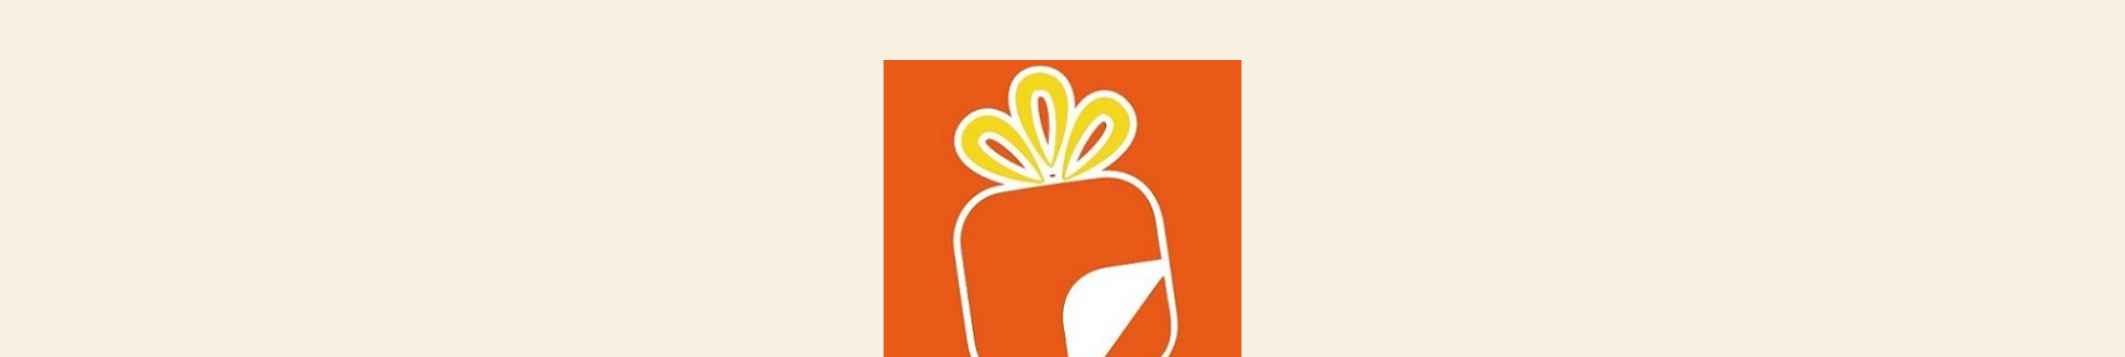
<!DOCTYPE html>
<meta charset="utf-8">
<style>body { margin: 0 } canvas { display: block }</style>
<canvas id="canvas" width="2125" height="357"></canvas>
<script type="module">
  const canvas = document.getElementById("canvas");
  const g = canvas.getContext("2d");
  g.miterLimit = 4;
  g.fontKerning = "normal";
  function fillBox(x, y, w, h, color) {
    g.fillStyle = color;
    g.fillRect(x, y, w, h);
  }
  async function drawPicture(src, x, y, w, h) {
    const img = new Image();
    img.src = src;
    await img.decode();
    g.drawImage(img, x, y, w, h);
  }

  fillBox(0, 0, 2125, 357, "#F8F0E3");
  await drawPicture("pic1.png", 883, 60, 359, 297);
  await drawPicture("pic2.png", 883, 60, 359, 297);
</script>
